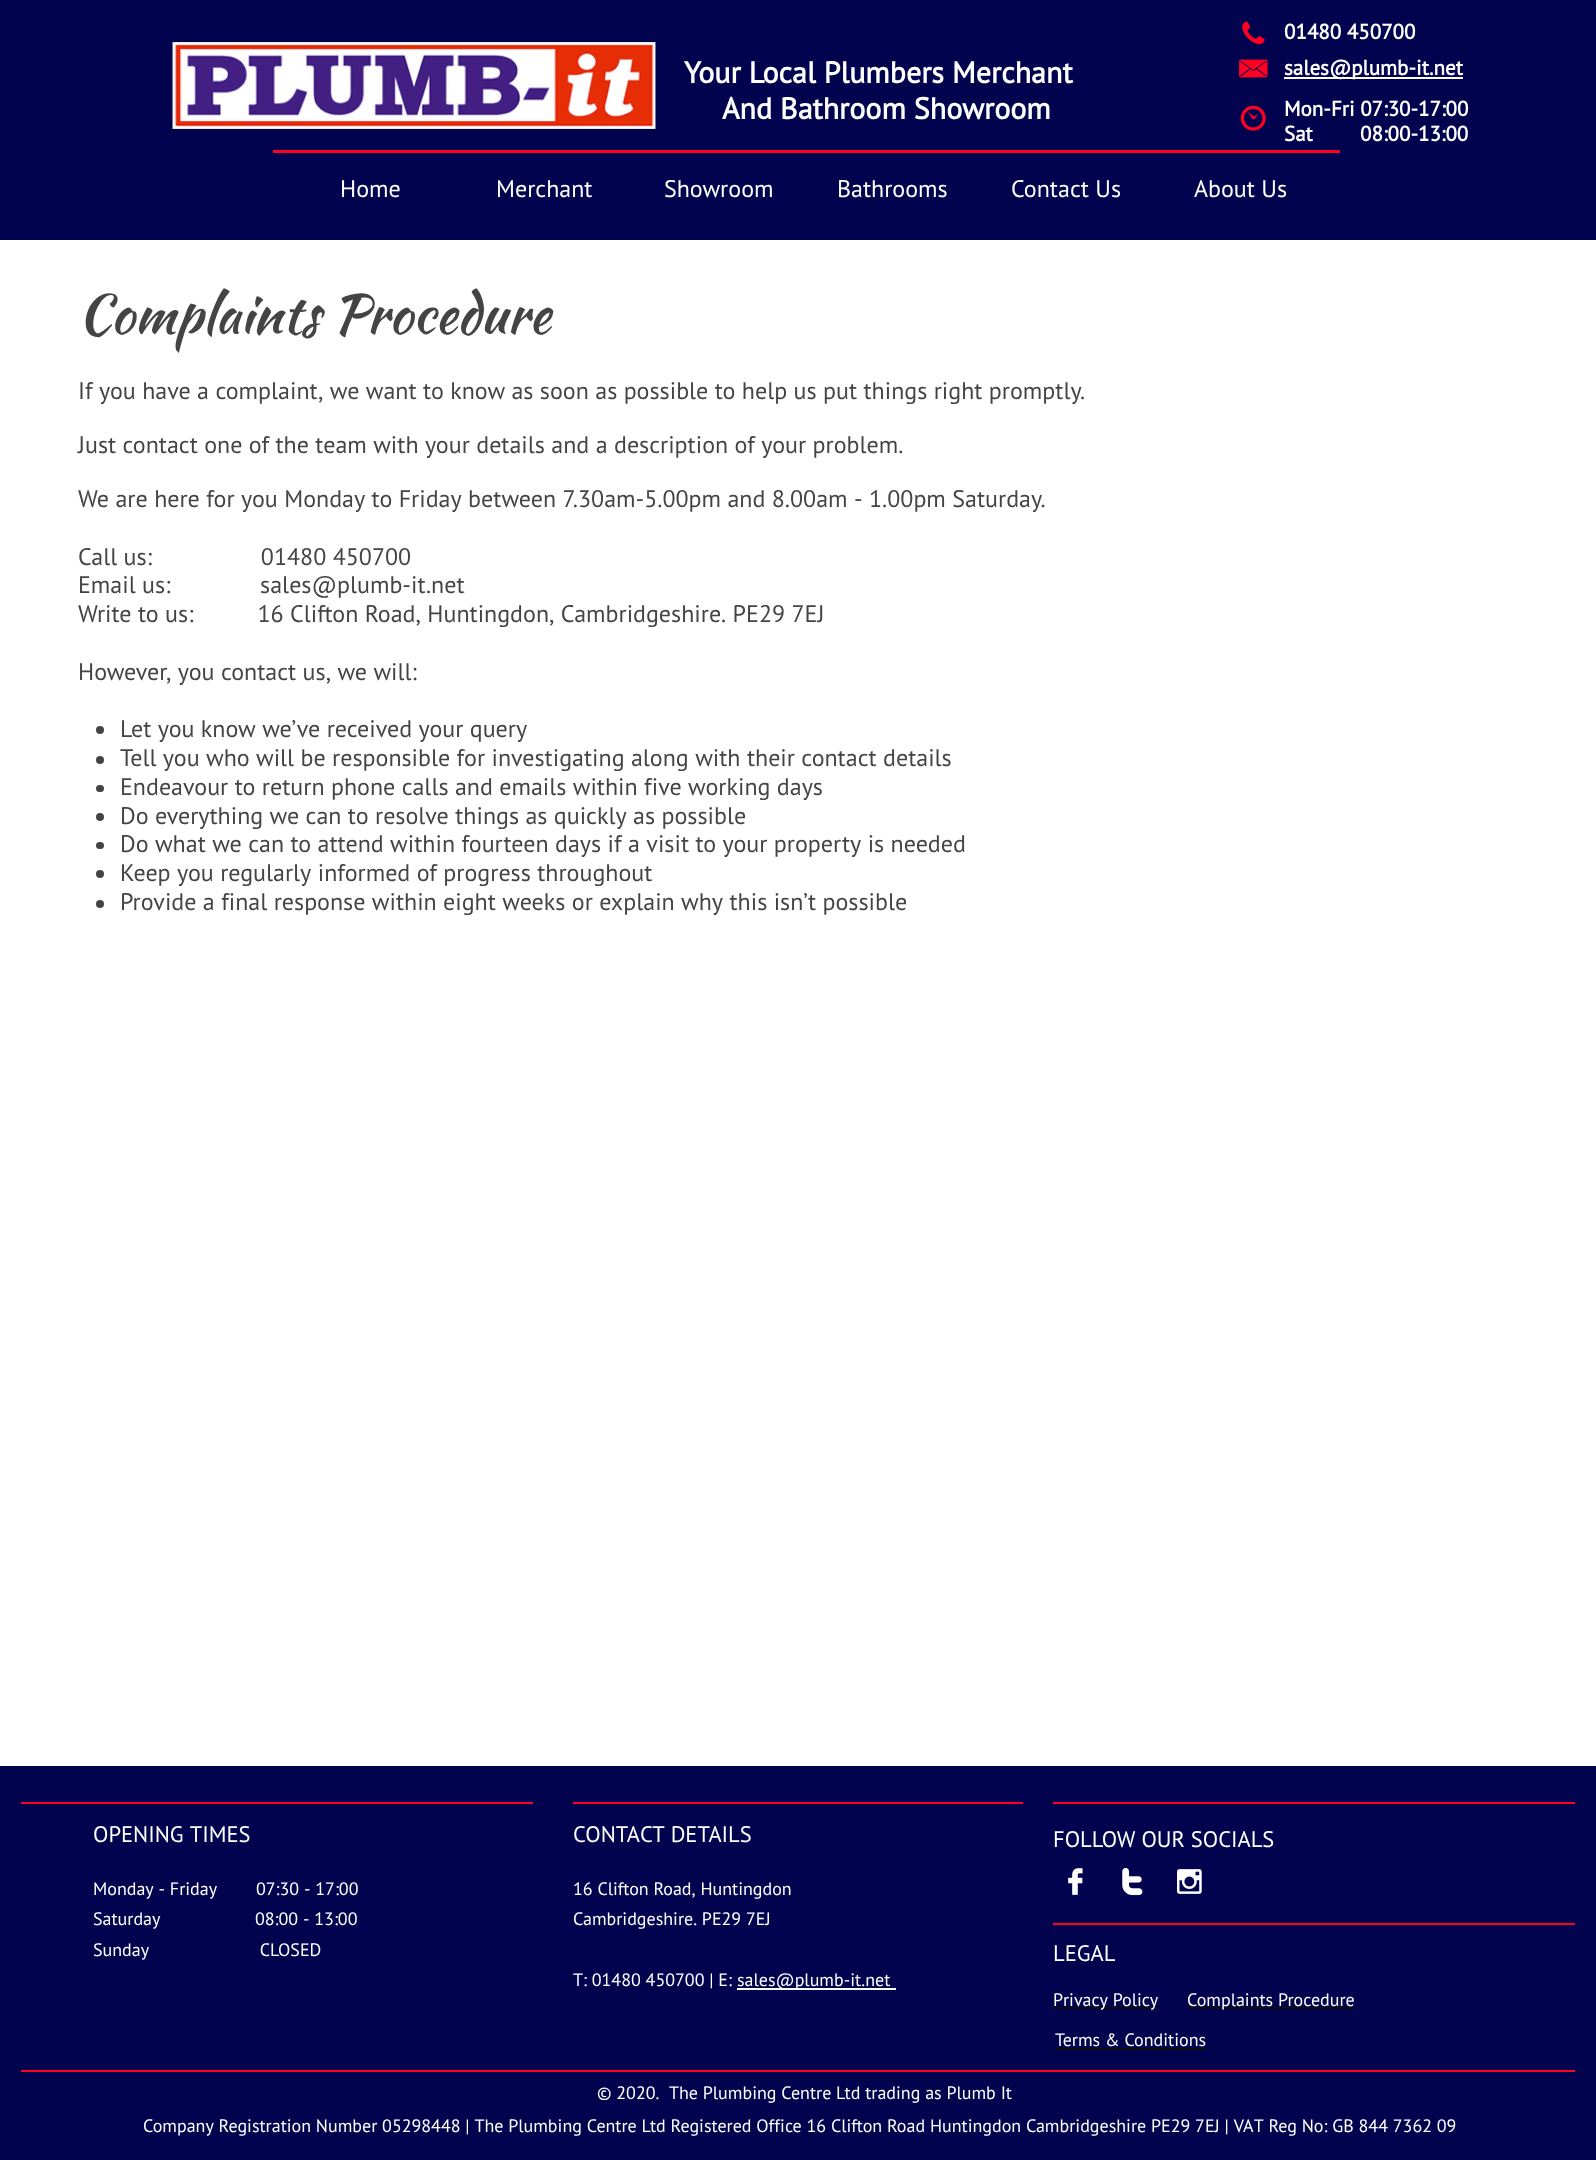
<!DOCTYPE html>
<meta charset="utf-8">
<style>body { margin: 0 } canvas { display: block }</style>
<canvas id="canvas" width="1596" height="2160"></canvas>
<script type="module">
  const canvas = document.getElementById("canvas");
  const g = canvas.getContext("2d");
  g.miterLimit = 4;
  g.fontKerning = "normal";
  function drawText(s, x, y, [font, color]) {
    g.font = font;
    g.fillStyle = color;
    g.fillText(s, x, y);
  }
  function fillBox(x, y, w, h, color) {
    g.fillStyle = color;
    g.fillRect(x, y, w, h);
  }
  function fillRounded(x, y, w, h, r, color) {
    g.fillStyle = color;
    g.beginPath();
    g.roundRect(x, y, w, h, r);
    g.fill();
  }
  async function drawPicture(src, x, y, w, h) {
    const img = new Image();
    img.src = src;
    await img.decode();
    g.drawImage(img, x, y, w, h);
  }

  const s1 = ["bold 21px PT Sans", "#FFFFFF"];
  const s2 = ["bold 30px PT Sans", "#FFFFFF"];
  const s3 = ["24px PT Sans", "#FFFFFF"];
  const s4 = ["54px Kaushan Script", "#444444"];
  const s5 = ["24px PT Sans", "#444444"];
  const s6 = ["22.5px PT Sans", "#FFFFFF"];
  const s7 = ["18px PT Sans", "#FFFFFF"];

  fillBox(0, 0, 1596, 2160, "#FFFFFF");
  fillBox(0, 0, 1596, 240, "#01034F");
  await drawPicture("pic1.png", 1242, 21, 23, 24);
  drawText("01480 450700", 1284, 39, s1);
  await drawPicture("pic2.png", 172, 42, 484, 87);
  drawText("Your Local Plumbers Merchant", 684, 83, s2);
  drawText("And Bathroom Showroom", 722, 119, s2);
  await drawPicture("pic3.png", 1239, 59, 29, 19);
  fillBox(1284, 77, 179, 2, "#FFFFFF");
  drawText("sales@plumb-it.net", 1284, 75, s1);
  await drawPicture("pic4.png", 1240, 105, 26, 26);
  drawText("Mon-Fri 07:30-17:00", 1284, 116, s1);
  drawText("Sat", 1284, 141, s1);
  drawText("08:00-13:00", 1360, 141, s1);
  fillBox(273, 150, 1067, 3, "#FF0022");
  drawText("Home", 340, 197, s3);
  drawText("Merchant", 496, 197, s3);
  drawText("Showroom", 664, 197, s3);
  drawText("Bathrooms", 837, 197, s3);
  drawText("Contact Us", 1011, 197, s3);
  drawText("About Us", 1194, 197, s3);
  drawText("Complaints Procedure", 78, 333, s4);
  drawText("If you have a complaint, we want to know as soon as possible to help us put things right promptly.", 78, 399, s5);
  drawText("Just contact one of the team with your details and a description of your problem.", 78, 453, s5);
  drawText("We are here for you Monday to Friday between 7.30am-5.00pm and 8.00am - 1.00pm Saturday.", 78, 507, s5);
  drawText("Call us:                 01480 450700", 78, 565, s5);
  drawText("Email us:              sales@plumb-it.net", 78, 593, s5);
  drawText("Write to us:          16 Clifton Road, Huntingdon, Cambridgeshire. PE29 7EJ", 78, 622, s5);
  drawText("However, you contact us, we will:", 78, 680, s5);
  g.beginPath();
  g.arc(100, 730, 4, 0, Math.PI * 2);
  g.fill();
  drawText("Let you know we’ve received your query", 120, 737, s5);
  g.beginPath();
  g.arc(100, 760, 4, 0, Math.PI * 2);
  g.fill();
  drawText("Tell you who will be responsible for investigating along with their contact details", 120, 766, s5);
  fillRounded(96, 785, 8, 7, 3.5, "#444444");
  drawText("Endeavour to return phone calls and emails within five working days", 120, 795, s5);
  g.beginPath();
  g.arc(100, 817, 4, 0, Math.PI * 2);
  g.fill();
  drawText("Do everything we can to resolve things as quickly as possible", 120, 824, s5);
  fillRounded(96, 842, 8, 7, 3.5, "#444444");
  drawText("Do what we can to attend within fourteen days if a visit to your property is needed", 120, 852, s5);
  g.beginPath();
  g.arc(100, 874, 4, 0, Math.PI * 2);
  g.fill();
  drawText("Keep you regularly informed of progress throughout", 120, 881, s5);
  g.beginPath();
  g.arc(100, 904, 4, 0, Math.PI * 2);
  g.fill();
  drawText("Provide a final response within eight weeks or explain why this isn’t possible", 120, 910, s5);
  fillBox(0, 1766, 1596, 394, "#01034F");
  fillBox(21, 1802, 512, 2, "#FF0022");
  fillBox(573, 1802, 450, 2, "#FF0022");
  fillBox(1053, 1802, 522, 2, "#FF0022");
  drawText("OPENING TIMES", 93, 1842, s6);
  drawText("CONTACT DETAILS", 573, 1842, s6);
  drawText("FOLLOW OUR SOCIALS", 1053, 1847, s6);
  drawText("Monday - Friday", 93, 1895, s7);
  drawText("07:30 - 17:00", 256, 1895, s7);
  drawText("Saturday", 93, 1925, s7);
  drawText("08:00 - 13:00", 255, 1925, s7);
  drawText("Sunday                       CLOSED", 93, 1956, s7);
  drawText("16 Clifton Road, Huntingdon", 573, 1895, s7);
  drawText("Cambridgeshire. PE29 7EJ", 573, 1925, s7);
  drawText("T: 01480 450700 | E:", 573, 1986, s7);
  fillBox(737, 1988, 159, 2, "#FFFFFF");
  drawText("sales@plumb-it.net", 737, 1986, s7);
  await drawPicture("pic5.png", 1068, 1868, 15, 27);
  await drawPicture("pic6.png", 1122, 1867, 21, 29);
  await drawPicture("pic7.png", 1177, 1869, 25, 25);
  fillBox(1053, 1923, 522, 2, "#FF0022");
  drawText("LEGAL", 1053, 1961, s6);
  drawText("P", 1053, 2006, s7);
  fillBox(1053, 2007, 104, 2, "#0F0F0F");
  drawText("rivacy Policy", 1063, 2006, s7);
  fillBox(1187, 2007, 168, 2, "#0F0F0F");
  drawText("Complaints Procedure", 1187, 2006, s7);
  drawText("Terms & Conditions", 1055, 2046, s7);
  fillBox(1055, 2048, 151, 2, "#0F0F0F");
  fillBox(21, 2070, 1554, 2, "#FF0022");
  drawText("© 2020.  The Plumbing Centre Ltd trading as Plumb It", 597, 2099, s7);
  drawText("Company Registration Number 05298448 | The Plumbing Centre Ltd Registered Office 16 Clifton Road Huntingdon Cambridgeshire PE29 7EJ | VAT Reg No: GB 844 7362 09", 143, 2132, s7);
</script>
